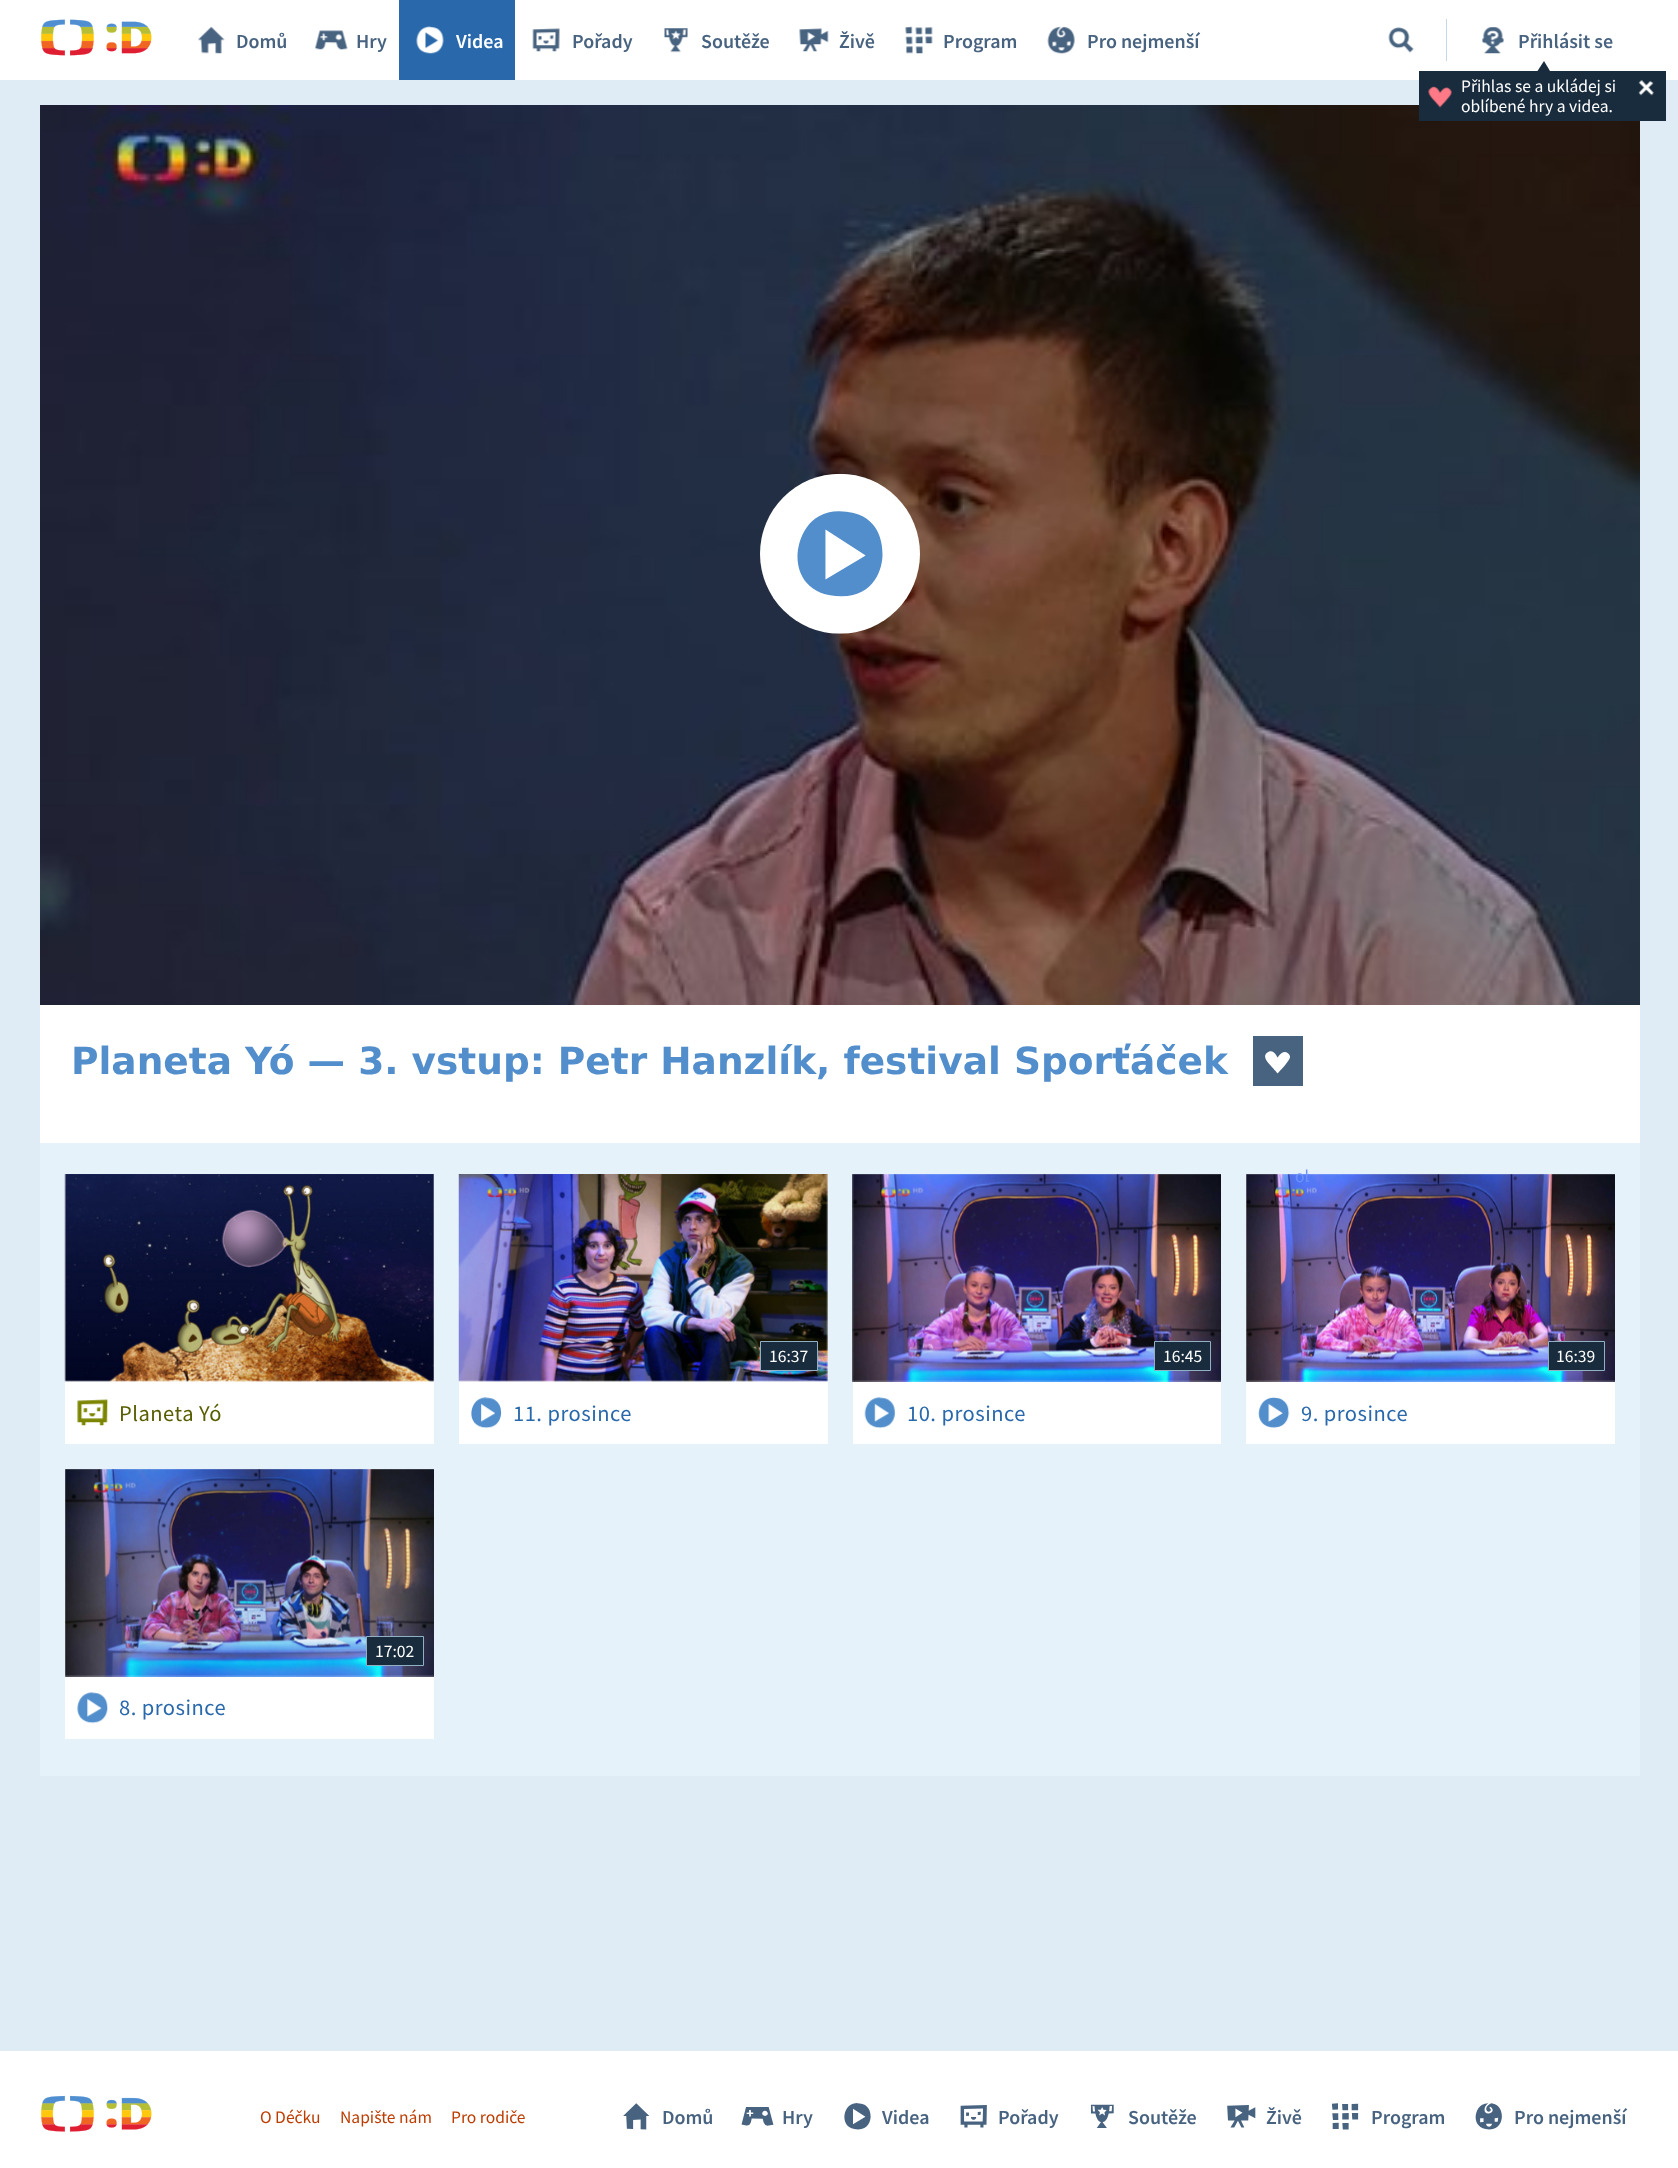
<!DOCTYPE html>
<meta charset="utf-8">
<style>body { margin: 0 } canvas { display: block }</style>
<canvas id="canvas" width="1678" height="2168"></canvas>
<script type="module">
  const canvas = document.getElementById("canvas");
  const g = canvas.getContext("2d");
  g.miterLimit = 4;
  g.fontKerning = "normal";
  function drawText(s, x, y, [font, color]) {
    g.font = font;
    g.fillStyle = color;
    g.fillText(s, x, y);
  }
  function fillBox(x, y, w, h, color) {
    g.fillStyle = color;
    g.fillRect(x, y, w, h);
  }
  async function drawPicture(src, x, y, w, h) {
    const img = new Image();
    img.src = src;
    await img.decode();
    g.drawImage(img, x, y, w, h);
  }

  const s1 = ["600 20px Source Sans Pro", "#486380"];
  const s2 = ["600 20px Source Sans Pro", "#FFFFFF"];
  const s3 = ["17.5px Source Sans Pro", "#FFFFFF"];
  const s4 = ["bold 37.5px DejaVu Sans", "#518ECB"];
  const s5 = ["17.5px Source Sans Pro", "#6F91F7"];
  const s6 = ["22.5px Source Sans Pro", "#575D00"];
  const s7 = ["22.5px Source Sans Pro", "#2969AB"];
  const s8 = ["17.5px Source Sans Pro", "#BD3D00"];

  fillBox(0, 0, 1678, 2168, "#E0ECF5");
  fillBox(0, 0, 1678, 80, "#FFFFFF");
  await drawPicture("pic1.png", 41, 19, 111, 37);
  await drawPicture("pic2.png", 198, 26, 27, 28);
  drawText("Domů", 236, 48, s1);
  await drawPicture("pic3.png", 314, 30, 34, 20);
  drawText("Hry", 356, 48, s1);
  fillBox(399, 0, 116, 80, "#2969AB");
  await drawPicture("pic4.png", 416, 26, 28, 28);
  drawText("Videa", 456, 48, s2);
  await drawPicture("pic5.png", 532, 28, 28, 24);
  drawText("Pořady", 572, 48, s1);
  await drawPicture("pic6.png", 664, 28, 24, 25);
  drawText("Soutěže", 701, 48, s1);
  await drawPicture("pic7.png", 799, 28, 30, 24);
  drawText("Živě", 839, 48, s1);
  await drawPicture("pic8.png", 905, 26, 28, 28);
  drawText("Program", 943, 48, s1);
  await drawPicture("pic9.png", 1047, 26, 28, 28);
  drawText("Pro nejmenší", 1087, 48, s1);
  await drawPicture("pic10.png", 1388, 27, 26, 26);
  fillBox(1446, 19, 1, 42, "#C3D7E6");
  await drawPicture("pic11.png", 1481, 26, 23, 28);
  drawText("Přihlásit se", 1518, 48, s1);
  await drawPicture("pic14.png", 40, 105, 1600, 900);
  fillBox(1419, 71, 247, 50, "#192C3D");
  g.beginPath();
  g.moveTo(1550, 71);
  g.lineTo(1537.5, 71);
  g.lineTo(1544, 61);
  g.closePath();
  g.fill();
  await drawPicture("pic12.png", 1428, 86, 24, 22);
  drawText("Přihlas se a ukládej si", 1461, 92, s3);
  drawText("oblíbené hry a videa.", 1461, 112, s3);
  await drawPicture("pic13.png", 1638, 80, 16, 16);
  await drawPicture("pic15.png", 760, 473, 160, 161);
  fillBox(40, 1005, 1600, 138, "#FFFFFF");
  drawText("Planeta Yó — 3. vstup: Petr Hanzlík, festival Sporťáček", 71, 1074, s4);
  fillBox(1253, 1036, 50, 50, "#486380");
  await drawPicture("pic16.png", 1265, 1051, 25, 23);
  fillBox(40, 1143, 1600, 633, "#E6F2FA");
  fillBox(1246, 1174, 369, 270, "#FFFFFF");
  await drawPicture("pic23.png", 1246, 1174, 369, 208);
  g.save();
  g.beginPath();
  g.rect(1246, 1101, 63, 150);
  g.clip();
  drawText("ob", 1295, 1182, s5);
  g.restore();
  fillBox(65, 1174, 369, 270, "#FFFFFF");
  await drawPicture("pic17.png", 64, 1174, 370, 208);
  await drawPicture("pic18.png", 77, 1399, 31, 27);
  g.letterSpacing = "0.5px";
  drawText("Planeta Yó", 119, 1421, s6);
  fillBox(459, 1174, 369, 270, "#FFFFFF");
  await drawPicture("pic19.png", 458, 1174, 370, 208);
  g.fillStyle = "#192C3D";
  g.beginPath();
  g.rect(760.5, 1341.5, 57, 29);
  g.fill();
  g.strokeStyle = "#91B0C4";
  g.stroke();
  g.letterSpacing = "0px";
  drawText("16:37", 769, 1362, s3);
  await drawPicture("pic20.png", 471, 1397, 31, 32);
  g.letterSpacing = "0.5px";
  drawText("11. prosince", 513, 1421, s7);
  fillBox(853, 1381, 368, 63, "#FFFFFF");
  await drawPicture("pic21.png", 852, 1174, 369, 208);
  g.fillStyle = "#192C3D";
  g.beginPath();
  g.rect(1154.5, 1341.5, 56, 29);
  g.fill();
  g.stroke();
  g.letterSpacing = "0px";
  drawText("16:45", 1163, 1362, s3);
  await drawPicture("pic22.png", 864, 1397, 32, 32);
  g.letterSpacing = "0.5px";
  drawText("10. prosince", 907, 1421, s7);
  g.fillStyle = "#192C3D";
  g.beginPath();
  g.rect(1548.5, 1341.5, 56, 29);
  g.fill();
  g.stroke();
  g.letterSpacing = "0px";
  drawText("16:39", 1556, 1362, s3);
  await drawPicture("pic24.png", 1258, 1397, 32, 31);
  g.letterSpacing = "0.5px";
  drawText("9. prosince", 1301, 1421, s7);
  fillBox(65, 1469, 369, 270, "#FFFFFF");
  await drawPicture("pic25.png", 65, 1469, 369, 208);
  g.fillStyle = "#192C3D";
  g.beginPath();
  g.rect(366.5, 1636.5, 57, 29);
  g.fill();
  g.stroke();
  g.letterSpacing = "0px";
  drawText("17:02", 375, 1657, s3);
  await drawPicture("pic26.png", 77, 1692, 31, 32);
  g.letterSpacing = "0.5px";
  drawText("8. prosince", 119, 1715, s7);
  fillBox(0, 2051, 1678, 117, "#FFFFFF");
  await drawPicture("pic27.png", 41, 2095, 111, 37);
  g.letterSpacing = "0px";
  drawText("O Déčku", 260, 2123, s8);
  drawText("Napište nám", 340, 2123, s8);
  drawText("Pro rodiče", 451, 2123, s8);
  await drawPicture("pic28.png", 623, 2103, 27, 27);
  drawText("Domů", 662, 2124, s1);
  await drawPicture("pic29.png", 741, 2107, 33, 19);
  drawText("Hry", 782, 2124, s1);
  await drawPicture("pic30.png", 844, 2103, 27, 27);
  drawText("Videa", 882, 2124, s1);
  await drawPicture("pic31.png", 960, 2105, 27, 23);
  drawText("Pořady", 998, 2124, s1);
  await drawPicture("pic32.png", 1090, 2104, 24, 24);
  drawText("Soutěže", 1128, 2124, s1);
  await drawPicture("pic33.png", 1227, 2105, 29, 23);
  drawText("Živě", 1266, 2124, s1);
  await drawPicture("pic34.png", 1331, 2103, 28, 27);
  drawText("Program", 1371, 2124, s1);
  await drawPicture("pic35.png", 1475, 2103, 27, 27);
  drawText("Pro nejmenší", 1514, 2124, s1);
</script>
